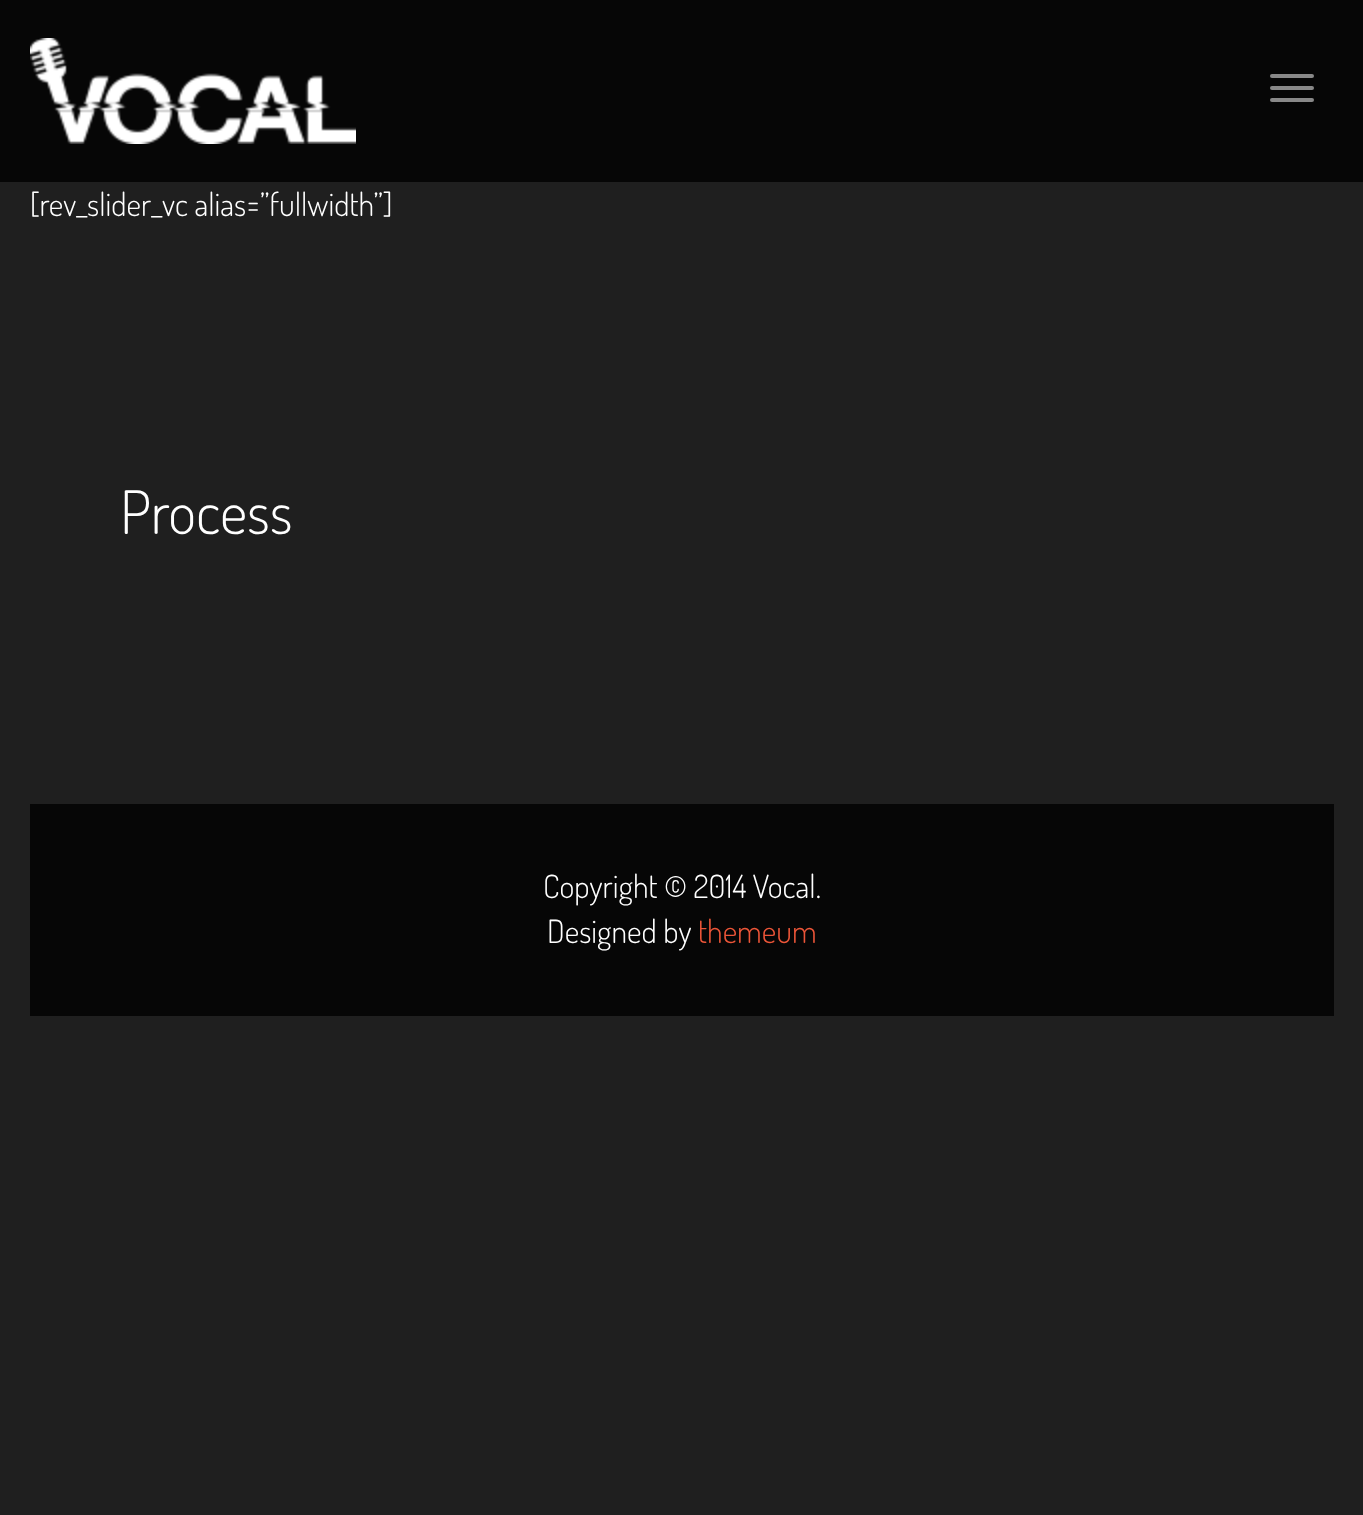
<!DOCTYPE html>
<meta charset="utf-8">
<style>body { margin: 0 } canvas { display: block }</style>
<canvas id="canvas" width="1363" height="1515"></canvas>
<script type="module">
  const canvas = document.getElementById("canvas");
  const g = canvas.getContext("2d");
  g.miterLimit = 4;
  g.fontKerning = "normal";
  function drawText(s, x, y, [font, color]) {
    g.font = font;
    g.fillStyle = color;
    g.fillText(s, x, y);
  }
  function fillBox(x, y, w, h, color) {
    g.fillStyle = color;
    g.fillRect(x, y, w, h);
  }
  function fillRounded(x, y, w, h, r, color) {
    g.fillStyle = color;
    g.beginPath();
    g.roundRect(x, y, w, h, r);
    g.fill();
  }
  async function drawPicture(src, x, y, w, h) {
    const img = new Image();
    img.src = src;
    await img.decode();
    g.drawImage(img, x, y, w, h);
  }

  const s1 = ["300 32px Dosis", "#FFFFFF"];
  const s2 = ["300 60px Dosis", "#FFFFFF"];
  const s3 = ["300 32px Dosis", "#EC5538"];

  fillBox(0, 0, 1363, 1515, "#1F1F1F");
  fillBox(0, 0, 1363, 182, "#060606");
  await drawPicture("pic1.png", 30, 38, 326, 106);
  fillRounded(1270, 74, 44, 4, 2, "#888888");
  fillRounded(1270, 86, 44, 4, 2, "#888888");
  fillRounded(1270, 98, 44, 4, 2, "#888888");
  drawText("[rev_slider_vc alias=”fullwidth”]", 30, 216, s1);
  drawText("Process", 120, 534, s2);
  fillBox(30, 804, 1304, 212, "#060606");
  drawText("Copyright © 2014 Vocal.", 543, 898, s1);
  drawText("Designed by", 547, 943, s1);
  drawText("themeum", 698, 943, s3);
</script>
